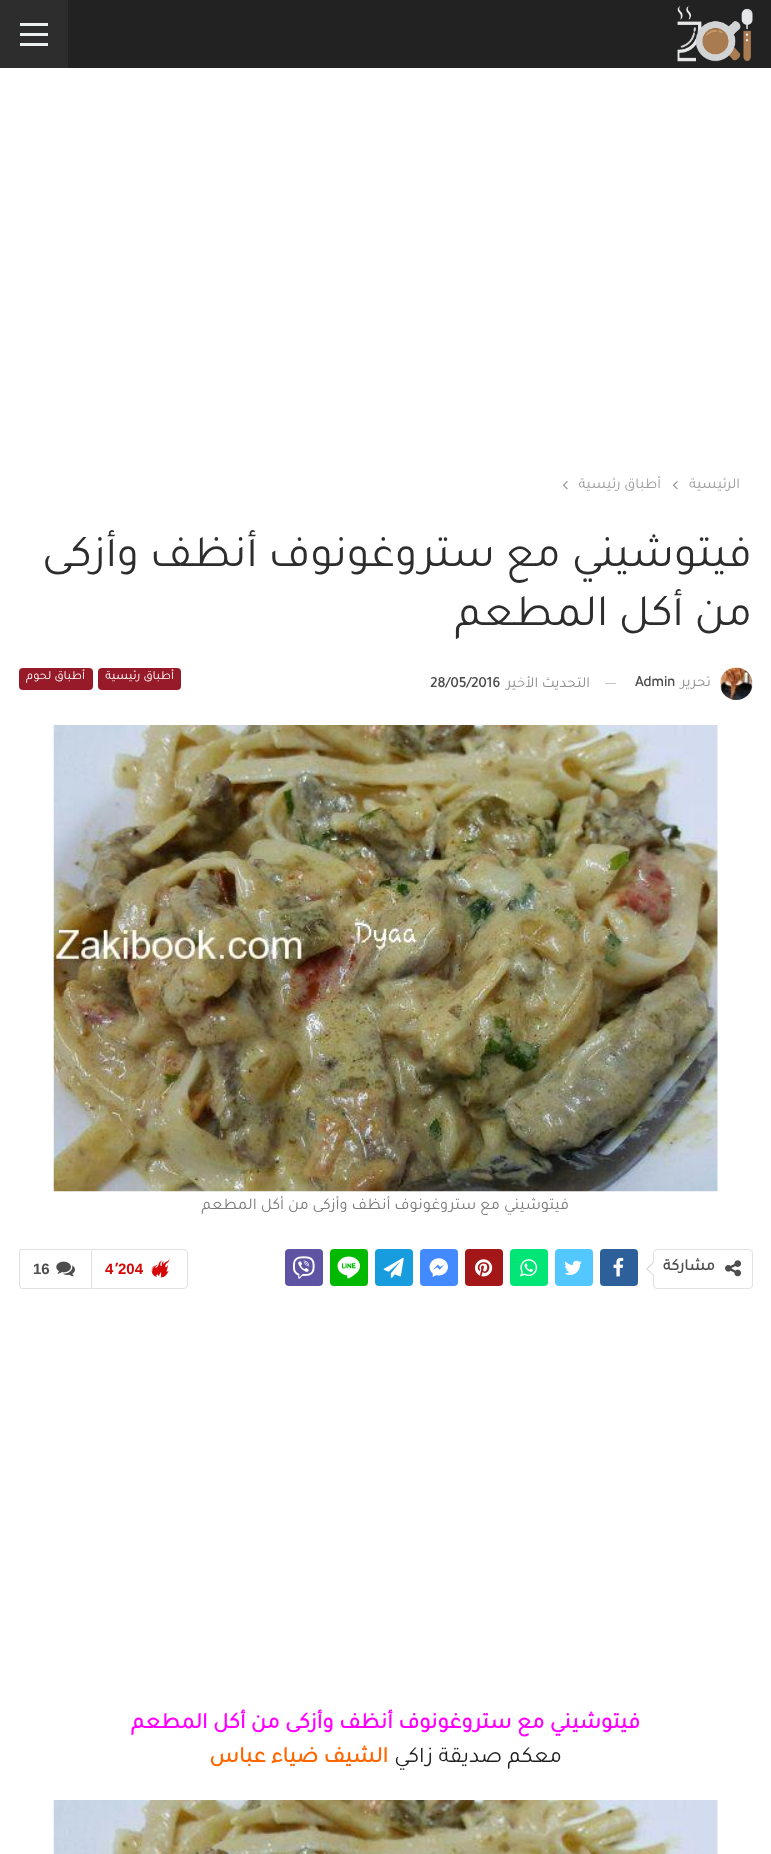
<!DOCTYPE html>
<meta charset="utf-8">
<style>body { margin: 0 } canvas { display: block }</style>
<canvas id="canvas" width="771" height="1854"></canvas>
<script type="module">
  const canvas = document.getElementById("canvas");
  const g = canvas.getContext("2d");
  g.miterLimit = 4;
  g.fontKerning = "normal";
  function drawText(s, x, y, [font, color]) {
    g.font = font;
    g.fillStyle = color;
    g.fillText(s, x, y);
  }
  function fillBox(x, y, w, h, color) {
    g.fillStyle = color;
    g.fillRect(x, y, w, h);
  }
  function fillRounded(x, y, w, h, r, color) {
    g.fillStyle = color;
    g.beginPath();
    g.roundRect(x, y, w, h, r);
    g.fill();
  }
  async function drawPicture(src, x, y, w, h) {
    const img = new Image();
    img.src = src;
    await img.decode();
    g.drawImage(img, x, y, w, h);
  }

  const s1 = ["15px Tajawal", "#9E9E9E"];
  const s2 = ["45px Tajawal", "#2D2D2D"];
  const s3 = ["15px Tajawal", "#8F8F8F"];
  const s4 = ["bold 15px Tajawal", "#4D4D4D"];
  const s5 = ["12.5px Tajawal", "#FFFFFF"];
  const s6 = ["16.25px Tajawal", "#7B7B7B"];
  const s7 = ["bold 16.25px Tajawal", "#4D4D4D"];
  const s8 = ["bold 15px Liberation Sans", "#D40808"];
  const s9 = ["bold 15px DejaVu Sans", "#D40808"];
  const s10 = ["bold 15px Liberation Sans", "#4D4D4D"];
  const s11 = ["bold 22.5px Tajawal", "#FF00FF"];
  const s12 = ["22.5px Tajawal", "#1E1E1E"];
  const s13 = ["bold 22.5px Tajawal", "#FF6600"];

  fillBox(0, 0, 771, 1854, "#FFFFFF");
  fillBox(68, 0, 703, 68, "#222222");
  await drawPicture("pic1.png", 677, 6, 76, 56);
  fillBox(0, 0, 68, 68, "#2D2D2D");
  fillBox(66, 0, 1, 68, "#2A2A2A");
  fillBox(20, 33, 28, 3, "#ECF0F1");
  fillBox(20, 23, 28, 3, "#ECF0F1");
  fillBox(20, 43, 28, 3, "#ECF0F1");
  g.direction = "rtl";
  drawText("الرئيسية", 740, 488, s1);
  await drawPicture("pic2.png", 673, 481, 5, 9);
  drawText("أطباق رئيسية", 661, 488, s1);
  await drawPicture("pic2.png", 563, 481, 5, 9);
  drawText("فيتوشيني مع ستروغونوف أنظف وأزكى", 752, 566, s2);
  drawText("من أكل المطعم", 752, 625, s2);
  await drawPicture("pic3.png", 720, 667, 33, 33);
  drawText("تحرير", 711, 686, s3);
  g.direction = "ltr";
  drawText("Admin", 635, 686, s4);
  fillBox(605, 683, 11, 1, "#C4C4C4");
  g.direction = "rtl";
  drawText("التحديث الأخير", 590, 687, s3);
  g.direction = "ltr";
  drawText("28/05/2016", 430, 687, s4);
  fillRounded(98, 668, 83, 22, 4, "#971A28");
  g.direction = "rtl";
  drawText("أطباق رئيسية", 174, 679, s5);
  fillRounded(19, 668, 74, 22, 4, "#971A28");
  drawText("أطباق لحوم", 85, 679, s5);
  await drawPicture("pic4.png", 53, 725, 665, 467);
  drawText("فيتوشيني مع ستروغونوف أنظف وأزكى من أكل المطعم", 569, 1209, s6);
  g.beginPath();
  g.roundRect(653.5, 1249.5, 99, 39, 3.5);
  g.strokeStyle = "#E2E2E2";
  g.stroke();
  await drawPicture("pic5.png", 725, 1260, 17, 17);
  drawText("مشاركة", 715, 1270, s7);
  g.fillStyle = "#D7D7D7";
  g.beginPath();
  g.moveTo(654, 1261);
  g.lineTo(654, 1276);
  g.lineTo(646, 1269);
  g.closePath();
  g.fill();
  g.fillStyle = "#FFFFFF";
  g.beginPath();
  g.moveTo(654, 1262.5);
  g.lineTo(654, 1275);
  g.lineTo(647.5, 1269);
  g.closePath();
  g.fill();
  fillRounded(600, 1249, 38, 37, 4, "#2D5F9A");
  await drawPicture("pic6.png", 613, 1257, 11, 20);
  fillRounded(555, 1249, 38, 37, 4, "#53C7FF");
  await drawPicture("pic7.png", 564, 1260, 18, 15);
  fillRounded(510, 1249, 38, 37, 4, "#00E676");
  await drawPicture("pic8.png", 520, 1259, 18, 18);
  fillRounded(465, 1249, 38, 37, 4, "#A41719");
  await drawPicture("pic9.png", 475, 1259, 18, 18);
  fillRounded(420, 1249, 38, 37, 4, "#448AFF");
  await drawPicture("pic10.png", 429, 1258, 19, 19);
  fillRounded(375, 1249, 38, 37, 4, "#179CDE");
  await drawPicture("pic11.png", 383, 1257, 21, 21);
  fillRounded(330, 1249, 38, 37, 4, "#00B900");
  await drawPicture("pic12.png", 337, 1256, 23, 23);
  fillRounded(285, 1249, 38, 37, 4, "#5D54A4");
  await drawPicture("pic13.png", 292, 1256, 23, 23);
  g.beginPath();
  g.roundRect(91.5, 1249.5, 96, 39, [0, 3.5, 3.5, 0]);
  g.stroke();
  await drawPicture("pic14.png", 151, 1259, 19, 19);
  g.direction = "ltr";
  drawText("204", 118, 1274, s8);
  drawText("٬", 114, 1274, s9);
  drawText("4", 105, 1274, s8);
  g.fillStyle = "#E2E2E2";
  g.beginPath();
  g.moveTo(22, 1249);
  g.lineTo(91, 1249);
  g.lineTo(91, 1289);
  g.lineTo(22, 1289);
  g.bezierCurveTo(20, 1289, 19, 1287, 19, 1285);
  g.lineTo(19, 1252);
  g.bezierCurveTo(19, 1250, 20, 1249, 22, 1249);
  g.closePath();
  g.moveTo(22, 1250);
  g.lineTo(91, 1250);
  g.lineTo(91, 1288);
  g.lineTo(22, 1288);
  g.bezierCurveTo(21, 1288, 20, 1286, 20, 1285);
  g.lineTo(20, 1252);
  g.bezierCurveTo(20, 1251, 21, 1250, 22, 1250);
  g.closePath();
  g.fill("evenodd");
  await drawPicture("pic15.png", 56, 1261, 19, 16);
  drawText("16", 33, 1274, s10);
  g.direction = "rtl";
  drawText("فيتوشيني مع ستروغونوف أنظف وأزكى من أكل المطعم", 640, 1728, s11);
  drawText("معكم صديقة زاكي", 562, 1762, s12);
  drawText("الشيف ضياء عباس", 388, 1762, s13);
  await drawPicture("pic16.png", 53, 1800, 665, 54);
</script>
